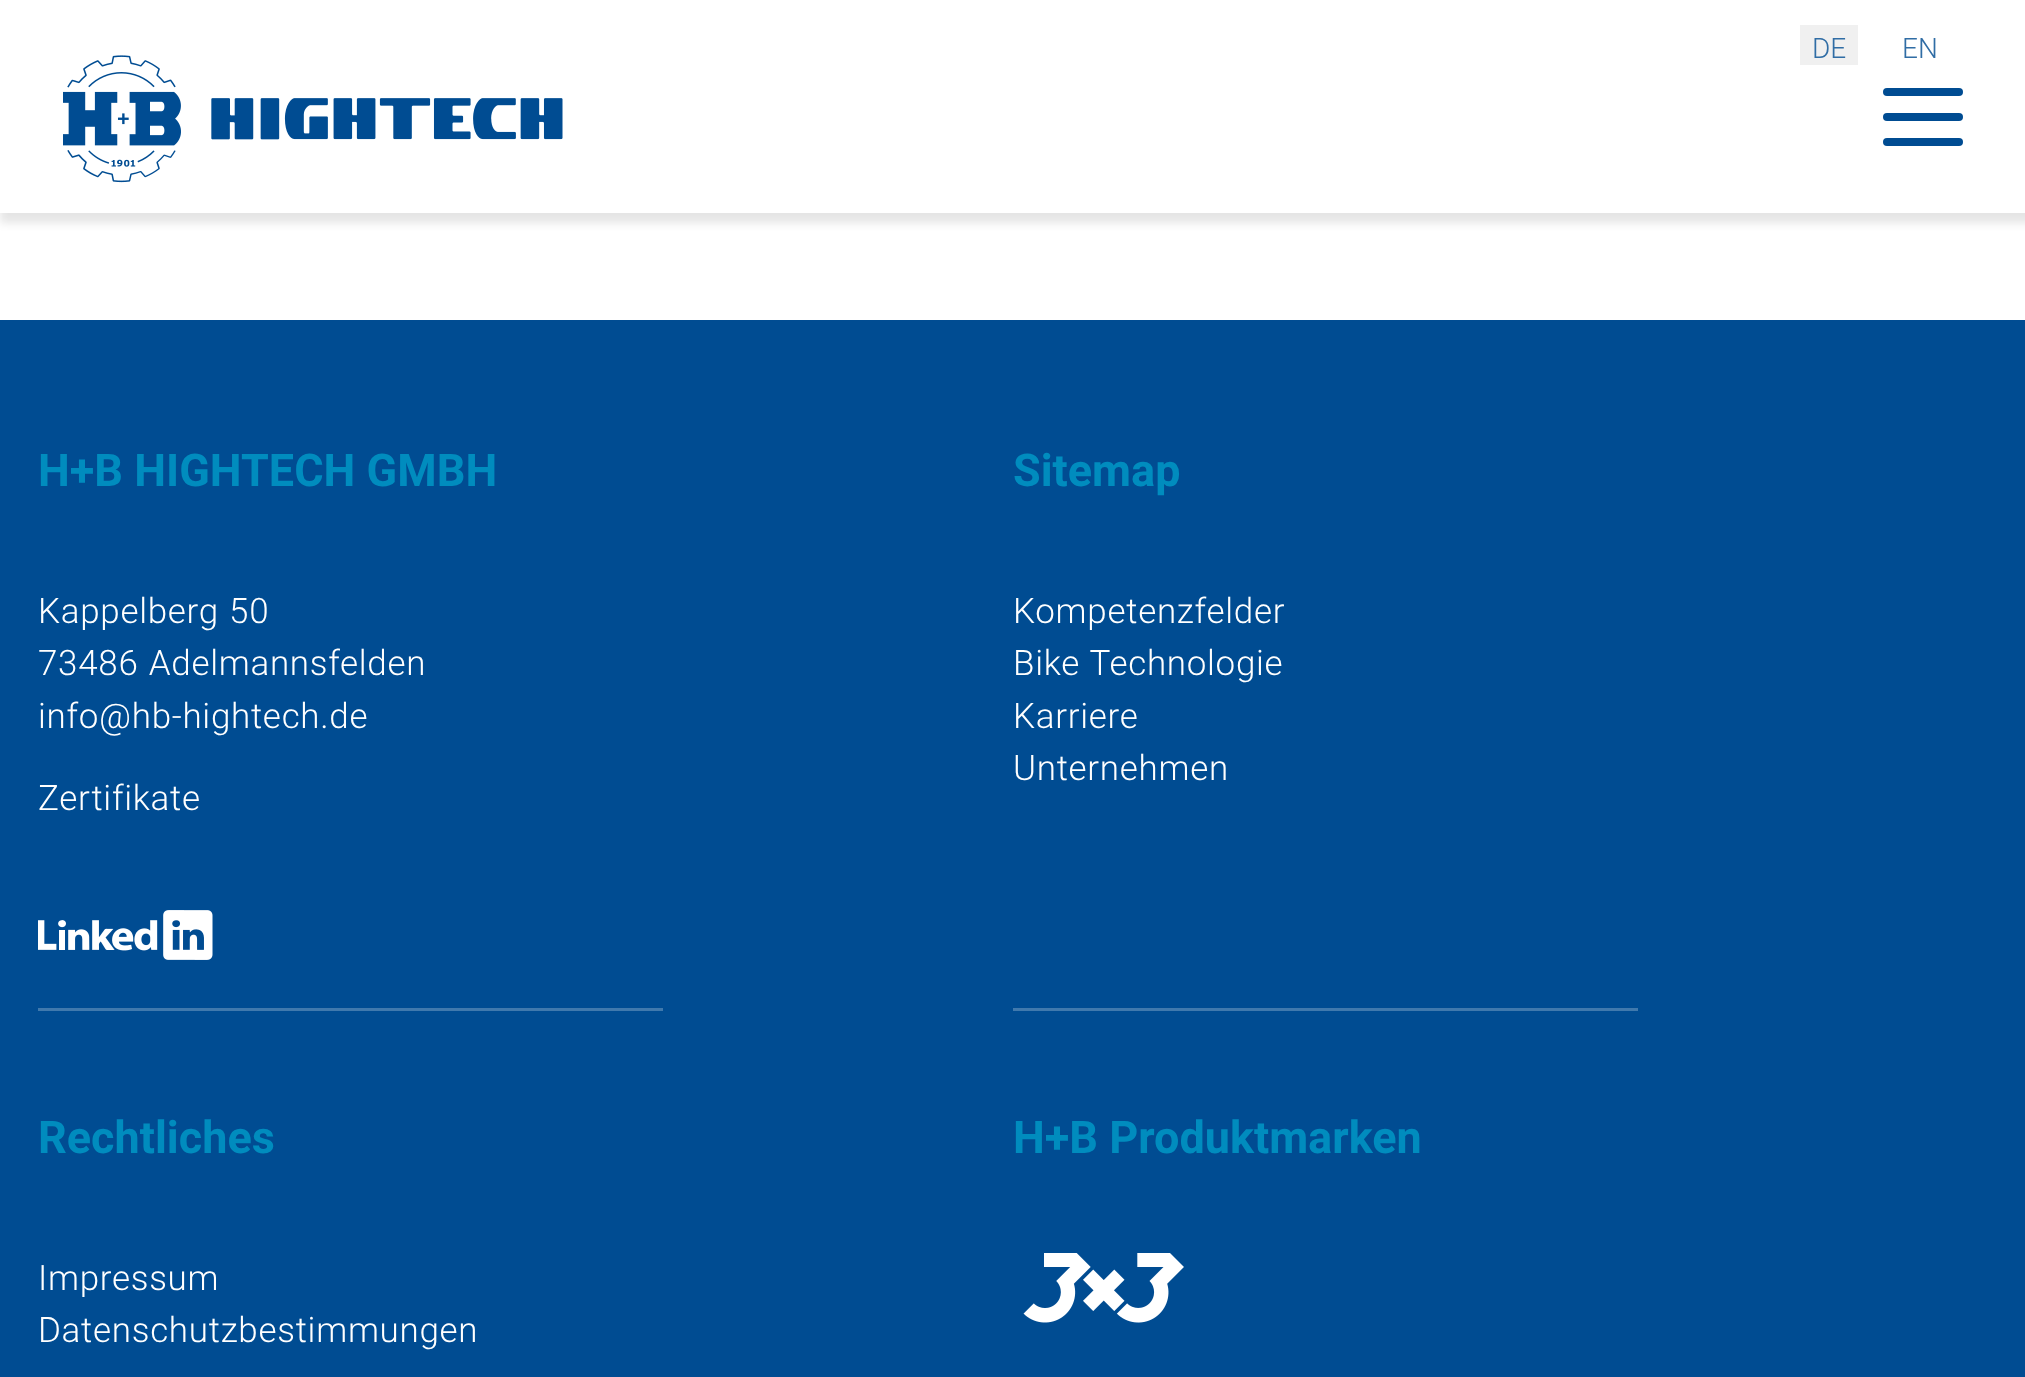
<!DOCTYPE html>
<meta charset="utf-8">
<style>body { margin: 0 } canvas { display: block }</style>
<canvas id="canvas" width="2025" height="1377"></canvas>
<script type="module">
  const canvas = document.getElementById("canvas");
  const g = canvas.getContext("2d");
  g.miterLimit = 4;
  g.fontKerning = "normal";
  function drawText(s, x, y, [font, color]) {
    g.font = font;
    g.fillStyle = color;
    g.fillText(s, x, y);
  }
  function fillBox(x, y, w, h, color) {
    g.fillStyle = color;
    g.fillRect(x, y, w, h);
  }
  function fillRounded(x, y, w, h, r, color) {
    g.fillStyle = color;
    g.beginPath();
    g.roundRect(x, y, w, h, r);
    g.fill();
  }
  async function drawPicture(src, x, y, w, h) {
    const img = new Image();
    img.src = src;
    await img.decode();
    g.drawImage(img, x, y, w, h);
  }

  const s1 = ["300 28px Roboto", "#306DA5"];
  const s2 = ["bold 45px Roboto", "#008CBE"];
  const s3 = ["300 35px Roboto", "#FFFFFF"];

  fillBox(0, 0, 2025, 1377, "#FFFFFF");
  g.fillStyle = "rgba(0, 0, 0, 0.1)";
  g.filter = "blur(4px)";
  g.beginPath();
  g.rect(0, 0, 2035, 223);
  g.fill();
  g.filter = "none";
  fillBox(0, 0, 2025, 213, "#FFFFFF");
  fillBox(1800, 25, 58, 40, "#F0F0F0");
  drawText("DE", 1812, 58, s1);
  drawText("EN", 1902, 58, s1);
  await drawPicture("pic1.png", 63, 55, 500, 128);
  fillRounded(1883, 113, 80, 8, 4, "#004C92");
  fillRounded(1883, 88, 80, 8, 4, "#004C92");
  fillRounded(1883, 138, 80, 8, 4, "#004C92");
  fillBox(0, 320, 2025, 1057, "#004C92");
  drawText("H+B HIGHTECH GMBH", 38, 486, s2);
  g.letterSpacing = "0.7px";
  g.wordSpacing = "1px";
  drawText("Kappelberg 50", 38, 623, s3);
  drawText("73486 Adelmannsfelden", 38, 675, s3);
  g.wordSpacing = "0px";
  drawText("info@hb-hightech.de", 38, 728, s3);
  drawText("Zertifikate", 38, 810, s3);
  await drawPicture("pic2.png", 38, 910, 175, 50);
  fillBox(38, 1008, 625, 3, "#4079AD");
  g.letterSpacing = "0px";
  drawText("Sitemap", 1013, 486, s2);
  g.letterSpacing = "0.7px";
  drawText("Kompetenzfelder", 1013, 623, s3);
  g.wordSpacing = "1px";
  drawText("Bike Technologie", 1013, 675, s3);
  g.wordSpacing = "0px";
  drawText("Karriere", 1013, 728, s3);
  drawText("Unternehmen", 1013, 780, s3);
  fillBox(1013, 1008, 625, 3, "#4079AD");
  g.letterSpacing = "0px";
  drawText("Rechtliches", 38, 1153, s2);
  g.letterSpacing = "0.7px";
  drawText("Impressum", 38, 1290, s3);
  drawText("Datenschutzbestimmungen", 38, 1342, s3);
  g.letterSpacing = "0px";
  drawText("H+B Produktmarken", 1013, 1153, s2);
  await drawPicture("pic3.png", 1023, 1253, 161, 70);
</script>
